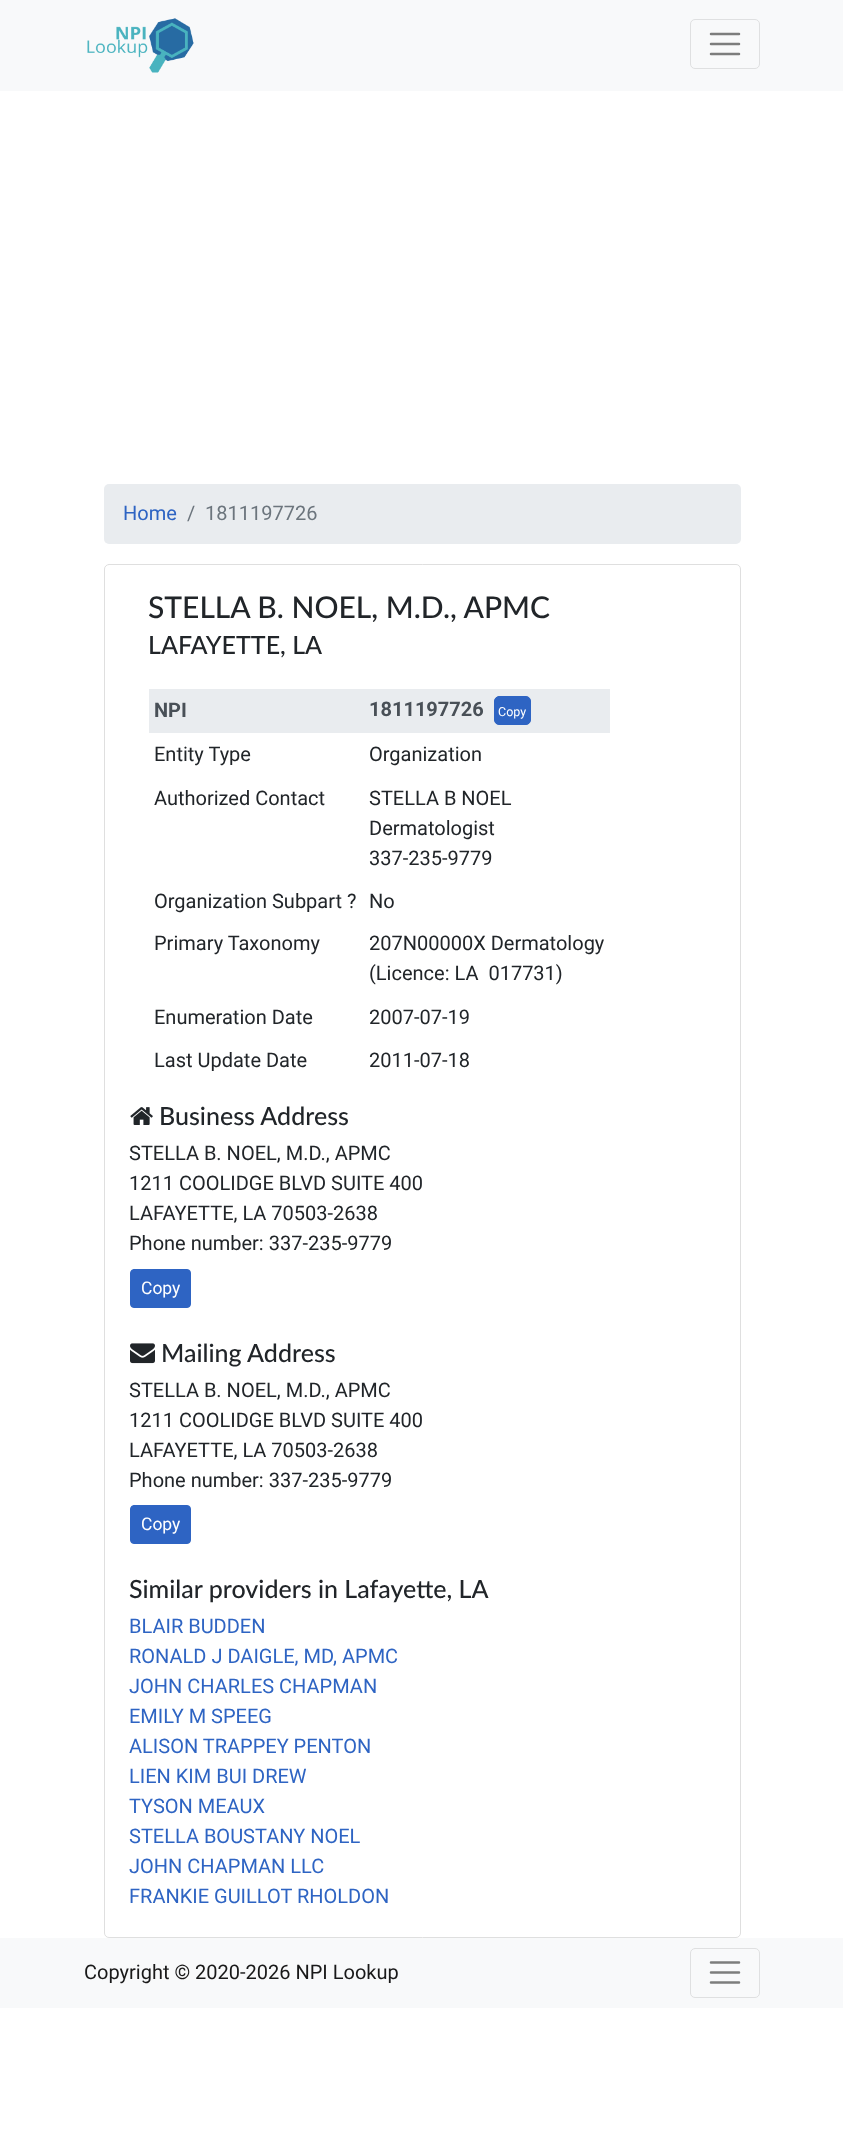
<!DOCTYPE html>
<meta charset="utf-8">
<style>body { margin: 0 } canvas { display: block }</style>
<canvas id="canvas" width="843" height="2131"></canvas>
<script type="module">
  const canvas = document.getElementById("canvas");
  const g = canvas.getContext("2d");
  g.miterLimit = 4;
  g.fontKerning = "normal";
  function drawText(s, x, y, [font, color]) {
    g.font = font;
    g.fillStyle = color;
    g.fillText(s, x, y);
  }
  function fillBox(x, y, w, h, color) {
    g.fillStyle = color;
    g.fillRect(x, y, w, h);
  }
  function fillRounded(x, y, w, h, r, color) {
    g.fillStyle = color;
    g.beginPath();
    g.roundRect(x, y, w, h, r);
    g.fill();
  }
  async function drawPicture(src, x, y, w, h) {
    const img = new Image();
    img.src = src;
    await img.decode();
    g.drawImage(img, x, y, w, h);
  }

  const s1 = ["20px Roboto", "#2E64C3"];
  const s2 = ["20px Roboto", "#6C757D"];
  const s3 = ["500 30px Lato", "#212529"];
  const s4 = ["500 25px Lato", "#212529"];
  const s5 = ["bold 20px Roboto", "#495057"];
  const s6 = ["12.5px Roboto", "#FFFFFF"];
  const s7 = ["20px Roboto", "#212529"];
  const s8 = ["17.5px Roboto", "#FFFFFF"];
  const s9 = ["20px Roboto", "#191919"];

  fillBox(0, 0, 843, 2131, "#FFFFFF");
  fillBox(0, 0, 843, 91, "#F8F9FA");
  await drawPicture("pic1.png", 87, 18, 107, 55);
  g.beginPath();
  g.roundRect(690.5, 19.5, 69, 49, 4.5);
  g.strokeStyle = "#DFE0E1";
  g.stroke();
  g.beginPath();
  g.moveTo(711, 34);
  g.lineTo(739, 34);
  g.moveTo(711, 44);
  g.lineTo(739, 44);
  g.moveTo(711, 54);
  g.lineTo(739, 54);
  g.strokeStyle = "#7C7D7D";
  g.lineWidth = 2.5;
  g.lineCap = "round";
  g.stroke();
  fillRounded(104, 484, 637, 60, 5, "#E9ECEF");
  drawText("Home", 123, 520, s1);
  drawText("/", 187, 520, s2);
  drawText("1811197726", 205, 520, s2);
  g.beginPath();
  g.roundRect(104.5, 564.5, 636, 1373, 4.5);
  g.strokeStyle = "#DFDFDF";
  g.lineWidth = 1;
  g.stroke();
  drawText("STELLA B. NOEL, M.D., APMC", 148, 618, s3);
  drawText("LAFAYETTE, LA", 148, 654, s4);
  fillBox(149, 689, 461, 44, "#E9ECEF");
  drawText("NPI", 154, 717, s5);
  drawText("1811197726", 369, 716, s5);
  g.fillStyle = "#2E64C3";
  g.beginPath();
  g.roundRect(494.5, 696.5, 36, 28, 4.5);
  g.fill();
  g.strokeStyle = "#2E64C3";
  g.stroke();
  drawText("Copy", 498, 716, s6);
  drawText("Entity Type", 154, 761, s7);
  drawText("Organization", 369, 761, s7);
  drawText("Authorized Contact", 154, 805, s7);
  drawText("STELLA B NOEL", 369, 805, s7);
  drawText("Dermatologist", 369, 835, s7);
  drawText("337-235-9779", 369, 865, s7);
  drawText("Organization Subpart ?", 154, 908, s7);
  drawText("No", 369, 908, s7);
  drawText("Primary Taxonomy", 154, 950, s7);
  drawText("207N00000X Dermatology", 369, 950, s7);
  drawText("(Licence: LA  017731)", 369, 980, s7);
  drawText("Enumeration Date", 154, 1024, s7);
  drawText("2007-07-19", 369, 1024, s7);
  drawText("Last Update Date", 154, 1067, s7);
  drawText("2011-07-18", 369, 1067, s7);
  await drawPicture("pic2.png", 130, 1107, 23, 18);
  drawText("Business Address", 159, 1125, s4);
  drawText("STELLA B. NOEL, M.D., APMC", 129, 1160, s7);
  drawText("1211 COOLIDGE BLVD SUITE 400", 129, 1190, s7);
  drawText("LAFAYETTE, LA 70503-2638", 129, 1220, s7);
  drawText("Phone number: 337-235-9779", 129, 1250, s7);
  g.fillStyle = "#2E64C3";
  g.beginPath();
  g.roundRect(130.5, 1269.5, 60, 38, 3.5);
  g.fill();
  g.stroke();
  drawText("Copy", 141, 1294, s8);
  await drawPicture("pic3.png", 130, 1343, 25, 21);
  drawText("Mailing Address", 161, 1362, s4);
  drawText("STELLA B. NOEL, M.D., APMC", 129, 1397, s7);
  drawText("1211 COOLIDGE BLVD SUITE 400", 129, 1427, s7);
  drawText("LAFAYETTE, LA 70503-2638", 129, 1457, s7);
  drawText("Phone number: 337-235-9779", 129, 1487, s7);
  g.fillStyle = "#2E64C3";
  g.beginPath();
  g.roundRect(130.5, 1505.5, 60, 38, 3.5);
  g.fill();
  g.stroke();
  drawText("Copy", 141, 1530, s8);
  drawText("Similar providers in Lafayette, LA", 129, 1598, s4);
  drawText("BLAIR BUDDEN", 129, 1633, s1);
  drawText("RONALD J DAIGLE, MD, APMC", 129, 1663, s1);
  drawText("JOHN CHARLES CHAPMAN", 129, 1693, s1);
  drawText("EMILY M SPEEG", 129, 1723, s1);
  drawText("ALISON TRAPPEY PENTON", 129, 1753, s1);
  drawText("LIEN KIM BUI DREW", 129, 1783, s1);
  drawText("TYSON MEAUX", 129, 1813, s1);
  drawText("STELLA BOUSTANY NOEL", 129, 1843, s1);
  drawText("JOHN CHAPMAN LLC", 129, 1873, s1);
  drawText("FRANKIE GUILLOT RHOLDON", 129, 1903, s1);
  fillBox(0, 1938, 843, 70, "#F8F9FA");
  drawText("Copyright © 2020-2026 NPI Lookup", 84, 1979, s9);
  g.beginPath();
  g.roundRect(690.5, 1948.5, 69, 49, 4.5);
  g.strokeStyle = "#DFE0E1";
  g.stroke();
  g.beginPath();
  g.moveTo(711, 1962.5);
  g.lineTo(739, 1962.5);
  g.moveTo(711, 1972.5);
  g.lineTo(739, 1972.5);
  g.moveTo(711, 1982.5);
  g.lineTo(739, 1982.5);
  g.strokeStyle = "#7C7D7D";
  g.lineWidth = 2.5;
  g.stroke();
</script>
